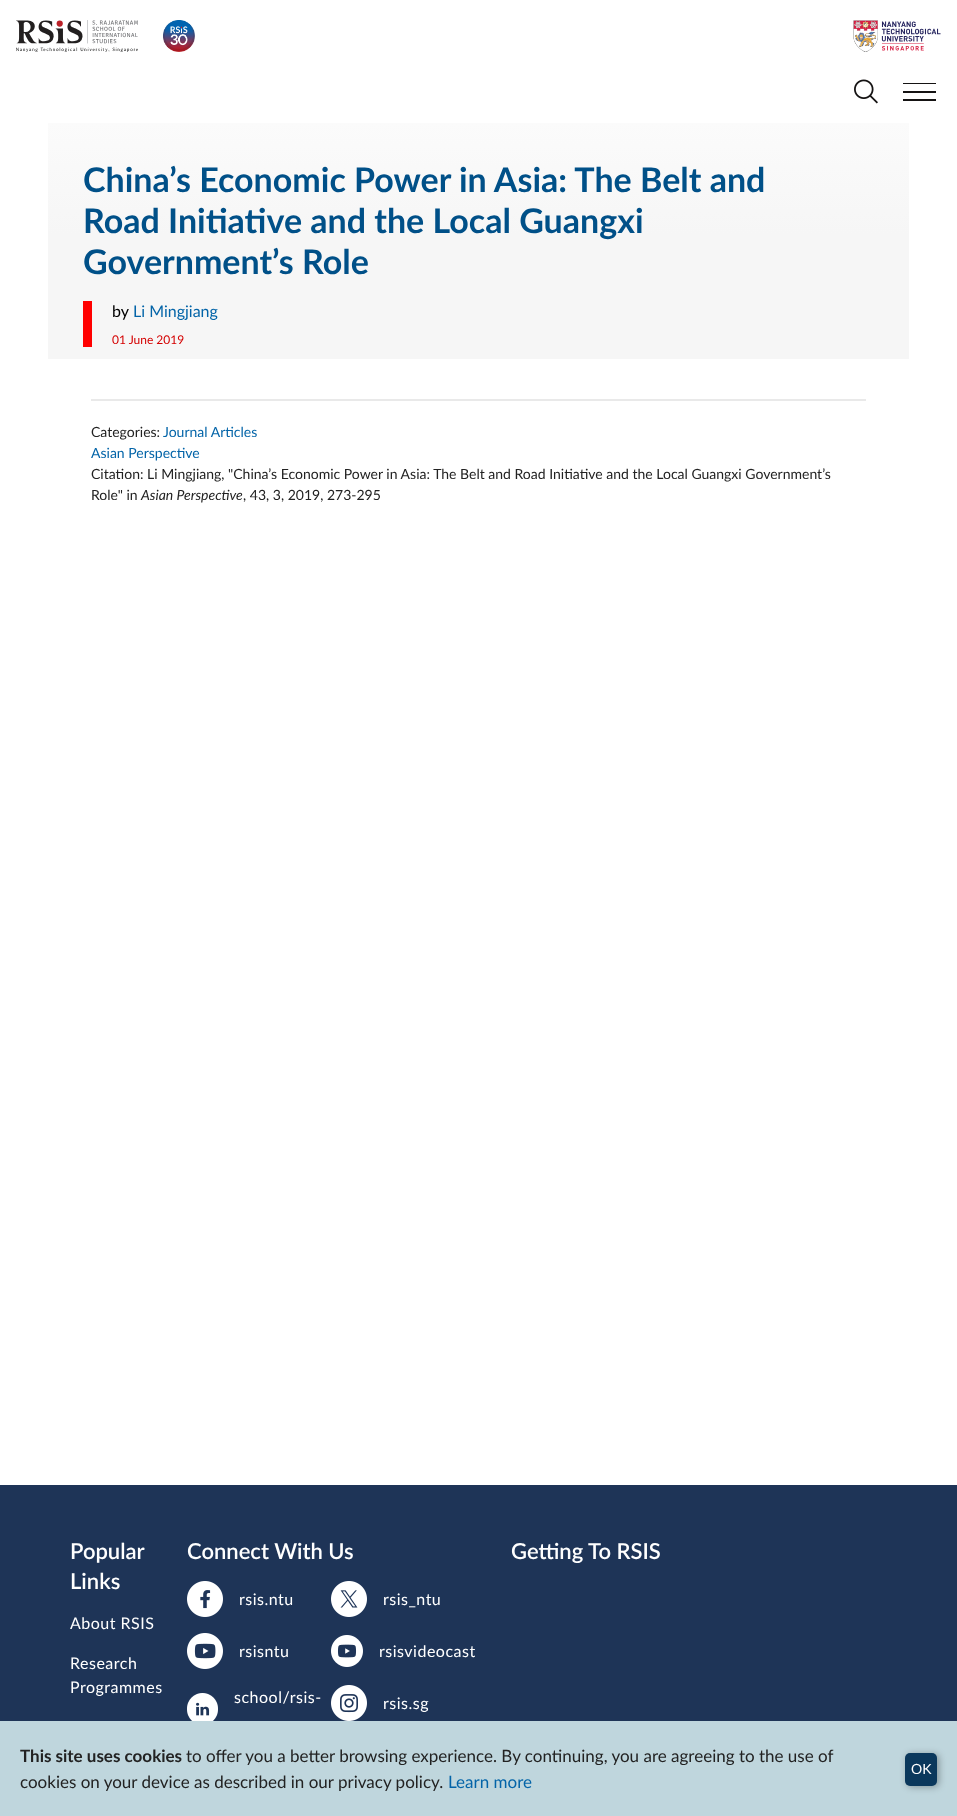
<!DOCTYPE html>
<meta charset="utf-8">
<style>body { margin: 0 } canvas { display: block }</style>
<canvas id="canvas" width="957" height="1816"></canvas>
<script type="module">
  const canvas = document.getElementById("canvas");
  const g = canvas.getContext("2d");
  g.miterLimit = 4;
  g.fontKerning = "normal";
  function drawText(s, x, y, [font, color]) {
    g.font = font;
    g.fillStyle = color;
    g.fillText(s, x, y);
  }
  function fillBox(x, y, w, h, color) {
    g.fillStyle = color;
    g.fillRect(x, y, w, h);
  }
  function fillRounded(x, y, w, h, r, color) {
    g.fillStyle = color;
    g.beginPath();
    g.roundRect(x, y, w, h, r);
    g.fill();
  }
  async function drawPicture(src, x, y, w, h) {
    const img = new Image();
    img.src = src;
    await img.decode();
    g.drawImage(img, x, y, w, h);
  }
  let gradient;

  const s1 = ["bold 34px Lato", "#005088"];
  const s2 = ["16px Lato", "#000000"];
  const s3 = ["16px Lato", "#0364A8"];
  const s4 = ["12px Lato", "#D40000"];
  const s5 = ["14px Lato", "#222222"];
  const s6 = ["14px Lato", "#0364A8"];
  const s7 = ["italic 14px Lato", "#222222"];
  const s8 = ["600 22px Lato", "#FFFFFF"];
  const s9 = ["16px Lato", "#FFFFFF"];
  const s10 = ["bold 17px Lato", "#222222"];
  const s11 = ["17px Lato", "#222222"];
  const s12 = ["17px Lato", "#0364A8"];
  const s13 = ["14px Lato", "#FFFFFF"];

  fillBox(0, 0, 957, 1816, "#FFFFFF");
  await drawPicture("pic1.png", 16, 20, 122, 32);
  await drawPicture("pic2.png", 163, 20, 32, 32);
  await drawPicture("pic3.png", 853, 20, 88, 32);
  await drawPicture("pic4.png", 854, 79, 24, 25);
  fillBox(903, 83, 33, 1, "#151313");
  fillBox(903, 91, 33, 2, "#151313");
  fillBox(903, 99, 33, 2, "#151313");
  gradient = g.createLinearGradient(479, 123, 479, 359);
  gradient.addColorStop(0, "#FBFBFB");
  gradient.addColorStop(0.47, "#F6F6F6");
  g.fillStyle = gradient;
  g.fillRect(48, 123, 861, 236);
  drawText("China’s Economic Power in Asia: The Belt and", 83, 192, s1);
  drawText("Road Initiative and the Local Guangxi", 83, 233, s1);
  drawText("Government’s Role", 83, 274, s1);
  fillBox(83, 301, 9, 46, "#FF0000");
  drawText("by", 112, 317, s2);
  drawText("Li Mingjiang", 133, 317, s3);
  drawText("01 June 2019", 112, 344, s4);
  fillBox(91, 399, 775, 2, "#E9E9E9");
  drawText("Categories:", 91, 437, s5);
  drawText("Journal Articles", 163, 437, s6);
  drawText("Asian Perspective", 91, 458, s6);
  drawText("Citation: Li Mingjiang, \"China’s Economic Power in Asia: The Belt and Road Initiative and the Local Guangxi Government’s", 91, 479, s5);
  drawText("Role\" in", 91, 500, s5);
  drawText("Asian Perspective", 141, 500, s7);
  drawText(", 43, 3, 2019, 273-295", 243, 500, s5);
  fillBox(0, 1485, 957, 236, "#1E3457");
  drawText("Popular", 70, 1559, s8);
  drawText("Links", 70, 1589, s8);
  g.letterSpacing = "0.5px";
  drawText("About RSIS", 70, 1629, s9);
  drawText("Research", 70, 1669, s9);
  drawText("Programmes", 70, 1693, s9);
  g.letterSpacing = "0px";
  drawText("Connect With Us", 187, 1559, s8);
  await drawPicture("pic5.png", 187, 1581, 36, 36);
  g.letterSpacing = "0.5px";
  drawText("rsis.ntu", 239, 1605, s9);
  await drawPicture("pic6.png", 331, 1581, 36, 36);
  drawText("rsis_ntu", 383, 1605, s9);
  await drawPicture("pic7.png", 187, 1633, 36, 36);
  drawText("rsisntu", 239, 1657, s9);
  await drawPicture("pic8.png", 331, 1635, 32, 32);
  drawText("rsisvideocast", 379, 1657, s9);
  await drawPicture("pic9.png", 187, 1693, 31, 28);
  drawText("school/rsis-", 234, 1703, s9);
  await drawPicture("pic10.png", 331, 1685, 36, 36);
  drawText("rsis.sg", 383, 1709, s9);
  g.letterSpacing = "0px";
  drawText("Getting To RSIS", 511, 1559, s8);
  fillBox(0, 1721, 957, 95, "#BFD6DD");
  drawText("This site uses cookies", 20, 1762, s10);
  drawText("to offer you a better browsing experience. By continuing, you are agreeing to the use of", 186, 1762, s11);
  drawText("cookies on your device as described in our privacy policy.", 20, 1788, s11);
  drawText("Learn more", 448, 1788, s12);
  g.fillStyle = "rgba(0, 0, 0, 0.31)";
  g.filter = "blur(3.5px)";
  g.beginPath();
  g.roundRect(907, 1754, 32, 33, 5);
  g.fill();
  g.filter = "none";
  fillRounded(905, 1753, 32, 33, 5, "#0B385C");
  drawText("OK", 911, 1774, s13);
</script>
